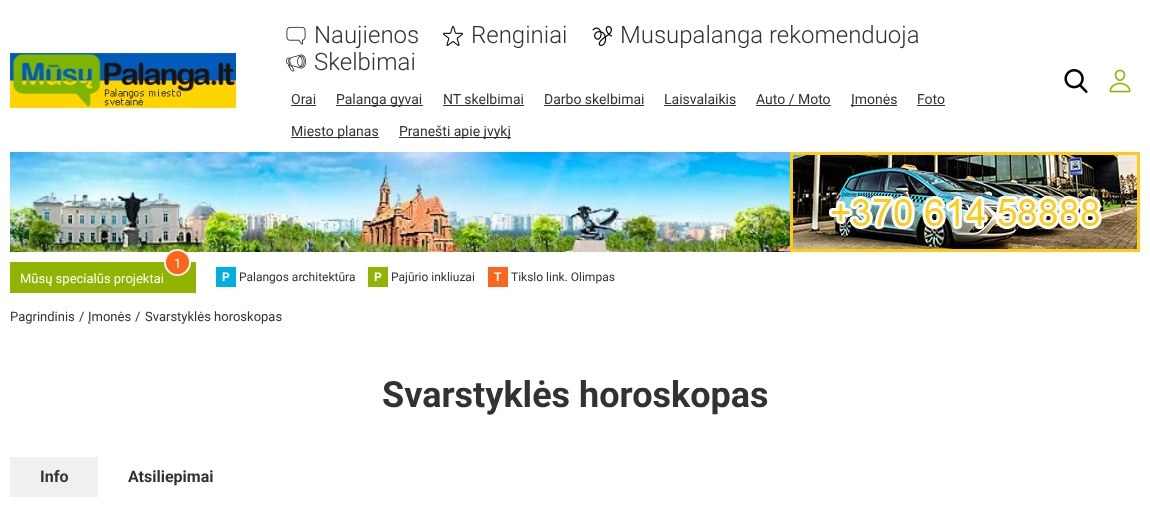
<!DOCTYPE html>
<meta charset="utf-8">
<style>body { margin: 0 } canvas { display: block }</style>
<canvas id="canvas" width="1150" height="527"></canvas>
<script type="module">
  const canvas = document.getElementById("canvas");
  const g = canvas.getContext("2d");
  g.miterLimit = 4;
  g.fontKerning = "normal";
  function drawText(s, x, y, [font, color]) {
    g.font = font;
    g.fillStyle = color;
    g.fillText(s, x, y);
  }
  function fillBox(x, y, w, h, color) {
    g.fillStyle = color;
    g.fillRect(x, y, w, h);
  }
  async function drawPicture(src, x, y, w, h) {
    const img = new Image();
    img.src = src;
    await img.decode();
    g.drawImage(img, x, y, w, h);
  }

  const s1 = ["300 24px Roboto", "#323232"];
  const s2 = ["14px Roboto", "#323232"];
  const s3 = ["13px Roboto", "#FFFFFF"];
  const s4 = ["bold 12px Roboto", "#FFFFFF"];
  const s5 = ["12px Roboto", "#323232"];
  const s6 = ["13px Roboto", "#323232"];
  const s7 = ["bold 36px Roboto", "#323232"];
  const s8 = ["bold 16px Roboto", "#323232"];

  fillBox(0, 0, 1150, 527, "#FFFFFF");
  await drawPicture("pic1.png", 10, 53, 226, 55);
  await drawPicture("pic2.png", 286, 26, 20, 19);
  drawText("Naujienos", 314, 43, s1);
  await drawPicture("pic3.png", 443, 26, 20, 20);
  drawText("Renginiai", 471, 43, s1);
  await drawPicture("pic4.png", 592, 26, 20, 20);
  drawText("Musupalanga rekomenduoja", 620, 43, s1);
  await drawPicture("pic5.png", 286, 54, 20, 18);
  drawText("Skelbimai", 314, 70, s1);
  drawText("Orai", 291, 104, s2);
  fillBox(291, 105, 25, 1, "#323232");
  fillBox(336, 105, 87, 1, "#323232");
  drawText("Palanga gyvai", 336, 104, s2);
  drawText("NT skelbimai", 443, 104, s2);
  fillBox(443, 105, 81, 1, "#323232");
  drawText("Darbo skelbimai", 544, 104, s2);
  fillBox(544, 105, 100, 1, "#323232");
  drawText("Laisvalaikis", 664, 104, s2);
  fillBox(664, 105, 72, 1, "#323232");
  drawText("Auto / Moto", 756, 104, s2);
  fillBox(756, 105, 75, 1, "#323232");
  fillBox(851, 105, 46, 1, "#323232");
  drawText("Įmonės", 851, 104, s2);
  drawText("Foto", 917, 104, s2);
  fillBox(917, 105, 28, 1, "#323232");
  fillBox(291, 137, 88, 1, "#323232");
  drawText("Miesto planas", 291, 136, s2);
  fillBox(399, 137, 112, 1, "#323232");
  drawText("Pranešti apie įvykį", 399, 136, s2);
  await drawPicture("pic6.png", 1064, 69, 24, 24);
  await drawPicture("pic7.png", 1109, 69, 22, 24);
  await drawPicture("pic8.png", 10, 152, 780, 100);
  await drawPicture("pic9.png", 790, 152, 350, 100);
  fillBox(10, 262, 186, 31, "#90B400");
  g.fillStyle = "#FB661C";
  g.beginPath();
  g.arc(177.5, 262.5, 12.5, 0, Math.PI * 2);
  g.fill();
  g.strokeStyle = "#F0F0F0";
  g.lineWidth = 2;
  g.stroke();
  drawText("1", 174, 268, s3);
  drawText("Mūsų specialūs projektai", 20, 283, s3);
  fillBox(216, 267, 20, 20, "#00AFE1");
  drawText("P", 222, 281, s4);
  drawText("Palangos architektūra", 239, 281, s5);
  fillBox(368, 267, 20, 20, "#90B400");
  drawText("P", 374, 281, s4);
  drawText("Pajūrio inkliuzai", 391, 281, s5);
  fillBox(488, 267, 20, 20, "#FB661C");
  drawText("T", 494, 281, s4);
  drawText("Tikslo link. Olimpas", 511, 281, s5);
  drawText("Pagrindinis", 10, 321, s6);
  drawText("/", 79, 321, s6);
  drawText("Įmonės", 88, 321, s6);
  drawText("/", 135, 321, s6);
  drawText("Svarstyklės horoskopas", 145, 321, s6);
  drawText("Svarstyklės horoskopas", 382, 407, s7);
  fillBox(10, 457, 88, 40, "#F0F0F0");
  drawText("Info", 40, 482, s8);
  drawText("Atsiliepimai", 128, 482, s8);
</script>
